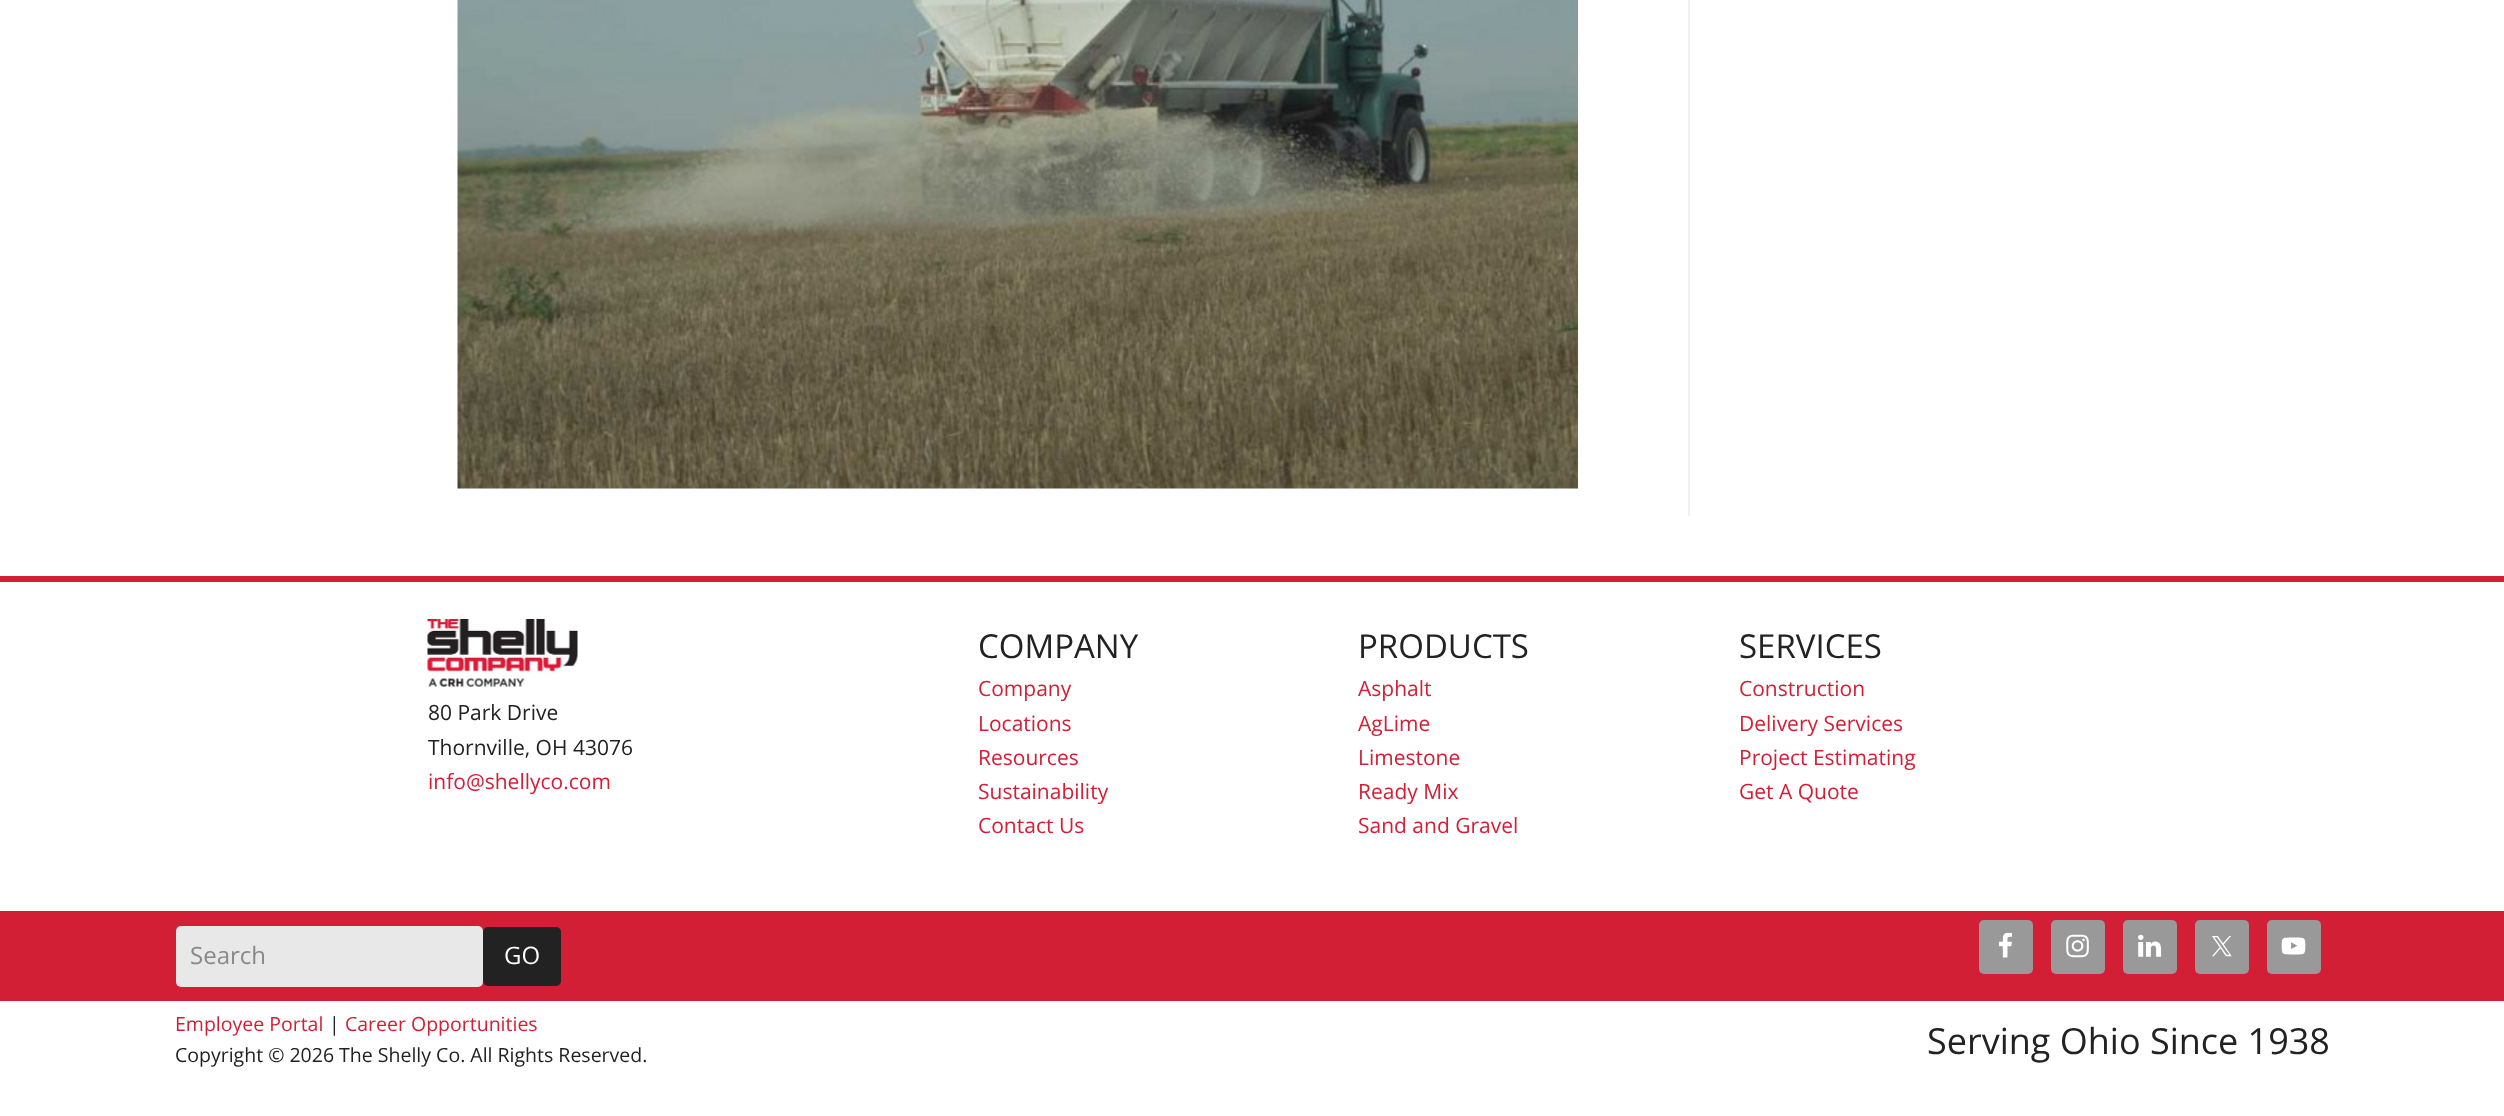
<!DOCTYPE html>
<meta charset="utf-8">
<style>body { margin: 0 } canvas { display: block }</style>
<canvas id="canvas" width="2504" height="1116"></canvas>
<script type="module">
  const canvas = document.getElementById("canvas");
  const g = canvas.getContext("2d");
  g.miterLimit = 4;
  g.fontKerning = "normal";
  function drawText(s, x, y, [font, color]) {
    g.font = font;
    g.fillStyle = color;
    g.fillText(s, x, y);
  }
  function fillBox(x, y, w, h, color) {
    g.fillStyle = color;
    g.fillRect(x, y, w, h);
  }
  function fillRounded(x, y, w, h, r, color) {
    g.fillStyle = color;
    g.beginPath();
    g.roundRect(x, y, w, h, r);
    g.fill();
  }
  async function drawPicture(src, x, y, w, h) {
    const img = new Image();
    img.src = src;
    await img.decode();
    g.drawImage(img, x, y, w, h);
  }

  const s1 = ["21px Open Sans", "#222222"];
  const s2 = ["21px Open Sans", "#D21F36"];
  const s3 = ["33px Open Sans", "#222222"];
  const s4 = ["24px Open Sans", "#888888"];
  const s5 = ["24px Open Sans", "#FFFFFF"];
  const s6 = ["19.5px Open Sans", "#D21F36"];
  const s7 = ["19.5px Open Sans", "#222222"];
  const s8 = ["36px Open Sans", "#222222"];

  fillBox(0, 0, 2504, 1116, "#FFFFFF");
  fillBox(1688, 0, 2, 516, "#F1F1F1");
  await drawPicture("pic1.png", 457, 0, 1121, 489);
  fillBox(0, 576, 2504, 6, "#D21F36");
  await drawPicture("pic2.png", 427, 619, 151, 68);
  drawText("80 Park Drive", 428, 720, s1);
  drawText("Thornville, OH 43076", 428, 755, s1);
  drawText("info@shellyco.com", 428, 789, s2);
  drawText("COMPANY", 978, 658, s3);
  drawText("Company", 978, 696, s2);
  drawText("Locations", 978, 731, s2);
  drawText("Resources", 978, 765, s2);
  drawText("Sustainability", 978, 799, s2);
  drawText("Contact Us", 978, 833, s2);
  drawText("PRODUCTS", 1358, 658, s3);
  drawText("Asphalt", 1358, 696, s2);
  drawText("AgLime", 1358, 731, s2);
  drawText("Limestone", 1358, 765, s2);
  drawText("Ready Mix", 1358, 799, s2);
  drawText("Sand and Gravel", 1358, 833, s2);
  drawText("SERVICES", 1739, 658, s3);
  drawText("Construction", 1739, 696, s2);
  drawText("Delivery Services", 1739, 731, s2);
  drawText("Project Estimating", 1739, 765, s2);
  drawText("Get A Quote", 1739, 799, s2);
  fillBox(0, 911, 2504, 90, "#D21F36");
  fillRounded(176, 926, 307, 61, 5, "#E8E8E8");
  drawText("Search", 190, 964, s4);
  fillRounded(483, 927, 78, 59, 5, "#222222");
  drawText("GO", 504, 964, s5);
  fillRounded(1979, 920, 54, 54, 5, "#999999");
  await drawPicture("pic3.png", 1999, 932, 13, 26);
  fillRounded(2051, 920, 54, 54, 5, "#999999");
  await drawPicture("pic4.png", 2066, 934, 23, 24);
  fillRounded(2123, 920, 54, 54, 5, "#999999");
  await drawPicture("pic5.png", 2138, 934, 24, 23);
  fillRounded(2195, 920, 54, 54, 5, "#999999");
  await drawPicture("pic6.png", 2212, 936, 20, 21);
  fillRounded(2267, 920, 54, 54, 5, "#999999");
  await drawPicture("pic7.png", 2281, 937, 25, 18);
  drawText("Employee Portal", 175, 1031, s6);
  drawText("|", 329, 1031, s7);
  drawText("Career Opportunities", 345, 1031, s6);
  drawText("Copyright © 2026 The Shelly Co. All Rights Reserved.", 175, 1062, s7);
  drawText("Serving Ohio Since 1938", 1927, 1054, s8);
</script>
